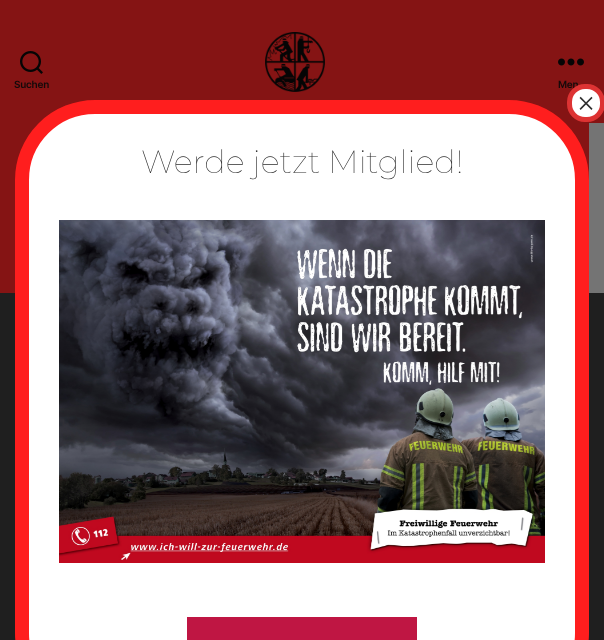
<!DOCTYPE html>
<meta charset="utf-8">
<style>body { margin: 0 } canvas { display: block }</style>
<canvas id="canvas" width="604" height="640"></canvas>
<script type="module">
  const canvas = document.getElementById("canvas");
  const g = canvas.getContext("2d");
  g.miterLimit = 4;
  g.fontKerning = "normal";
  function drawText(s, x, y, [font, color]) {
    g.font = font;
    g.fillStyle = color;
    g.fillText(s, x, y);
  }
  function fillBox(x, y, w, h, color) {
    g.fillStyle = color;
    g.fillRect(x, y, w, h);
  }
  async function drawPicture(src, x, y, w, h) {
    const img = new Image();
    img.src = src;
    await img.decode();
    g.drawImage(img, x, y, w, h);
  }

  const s1 = ["600 10px Inter", "#140A0A"];
  const s2 = ["32px Liberation Serif", "#2D2D2D"];
  const s3 = ["100 32px Montserrat", "#2D2D2D"];

  fillBox(0, 0, 604, 640, "#747474");
  fillBox(0, 0, 604, 123, "#851414");
  await drawPicture("pic1.png", 20, 51, 23, 23);
  g.letterSpacing = "-0.25px";
  drawText("Suchen", 14, 88, s1);
  await drawPicture("pic2.png", 265, 32, 60, 60);
  await drawPicture("pic3.png", 558, 58, 26, 8);
  drawText("Men", 558, 88, s1);
  fillBox(0, 123, 589, 170, "#851414");
  fillBox(0, 293, 604, 347, "#1F1F1F");
  g.fillStyle = "#FFFFFF";
  g.beginPath();
  g.roundRect(22, 107, 560, 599, 73);
  g.fill();
  g.strokeStyle = "#FF1E1E";
  g.lineWidth = 14;
  g.stroke();
  g.beginPath();
  g.roundRect(569.5, 86.5, 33, 33, 15.5);
  g.fill();
  g.strokeStyle = "#DD3333";
  g.lineWidth = 5;
  g.stroke();
  g.letterSpacing = "0px";
  drawText("×", 577, 114, s2);
  drawText("Werde jetzt Mitglied!", 141, 173, s3);
  await drawPicture("pic4.png", 59, 220, 486, 343);
  fillBox(187, 617, 230, 23, "#BF1643");
</script>
